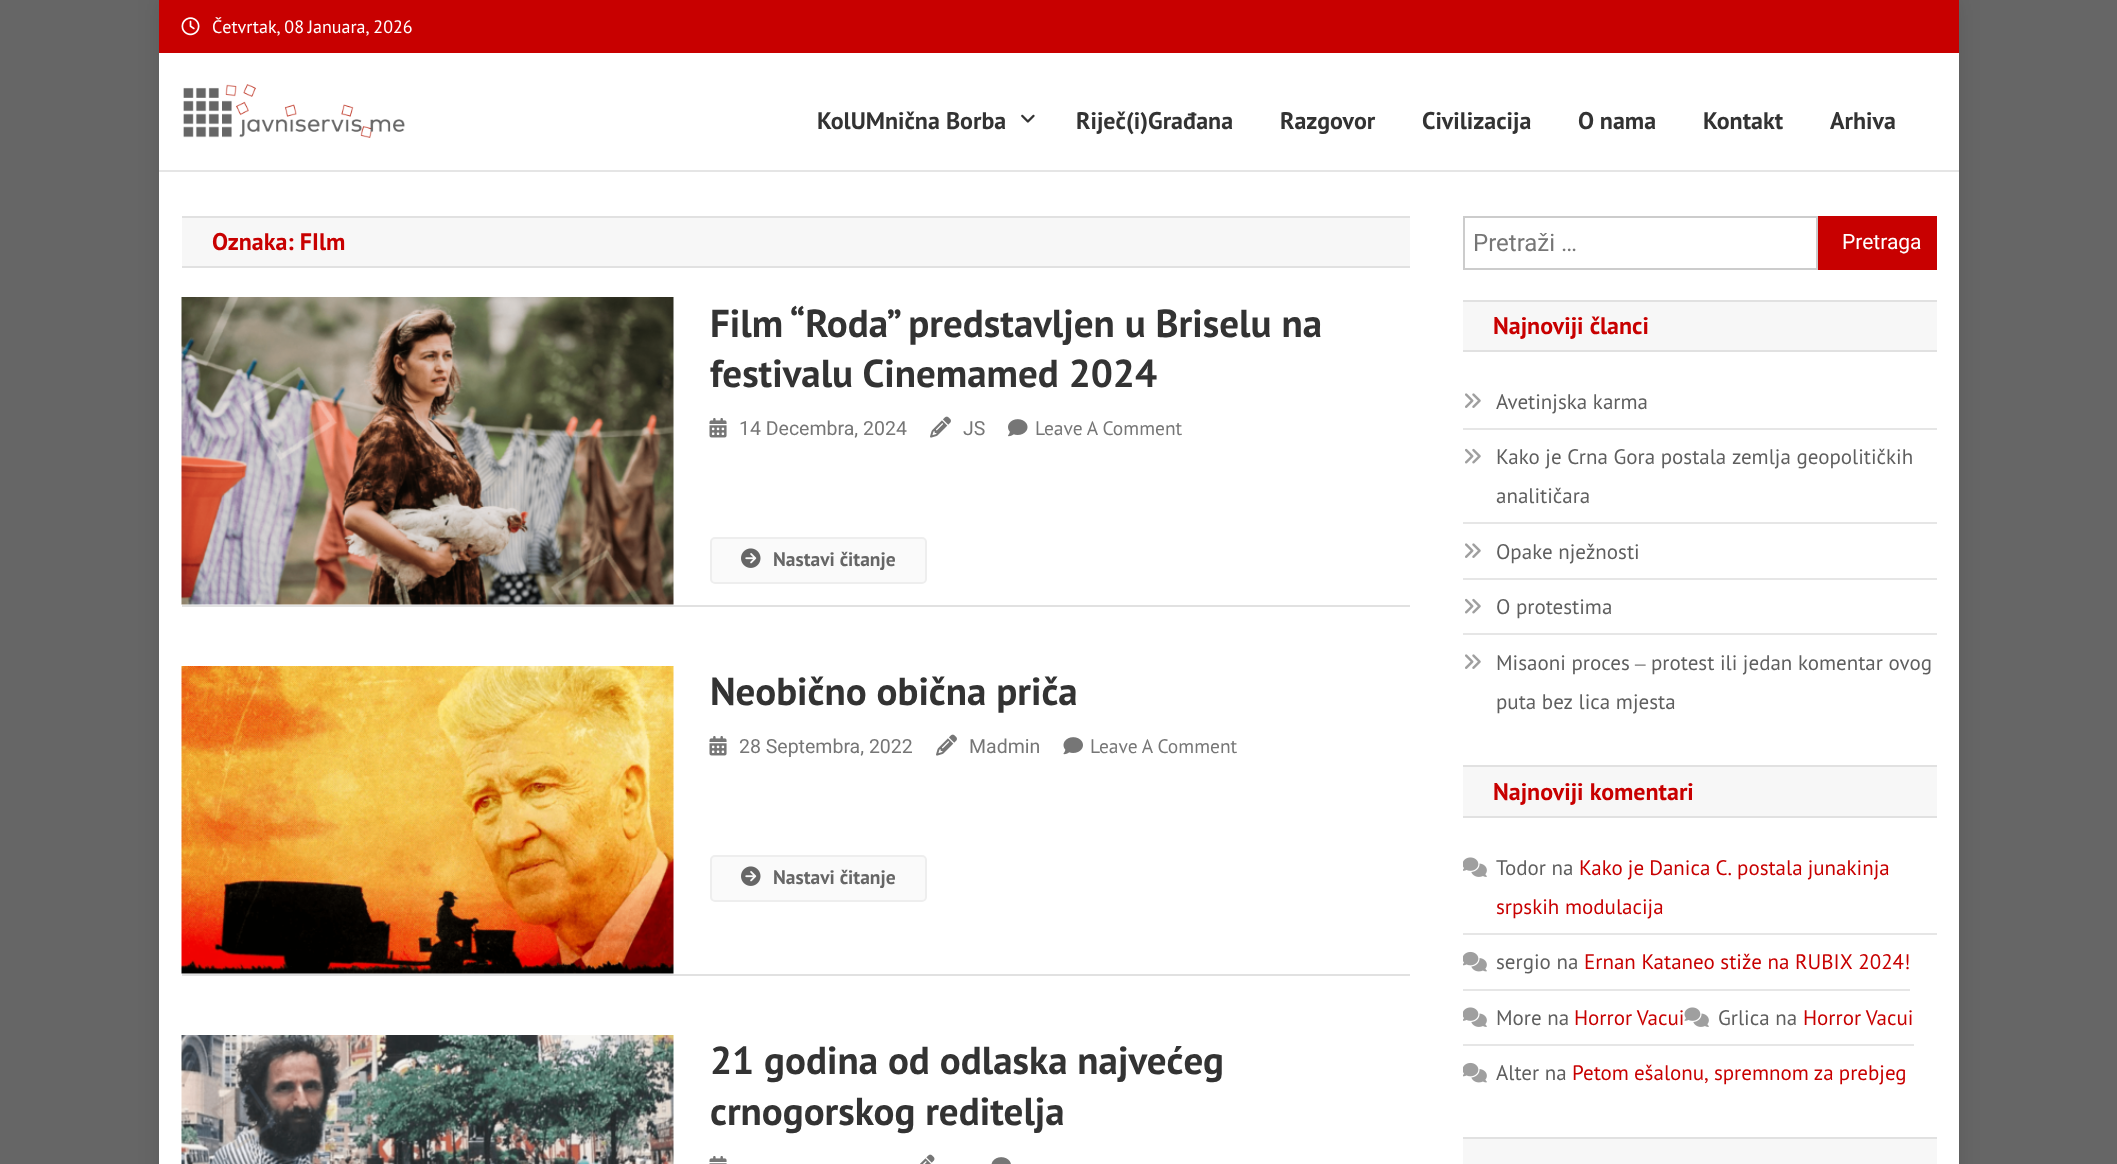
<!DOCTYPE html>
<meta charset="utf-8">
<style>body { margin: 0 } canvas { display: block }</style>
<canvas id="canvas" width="2117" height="1164"></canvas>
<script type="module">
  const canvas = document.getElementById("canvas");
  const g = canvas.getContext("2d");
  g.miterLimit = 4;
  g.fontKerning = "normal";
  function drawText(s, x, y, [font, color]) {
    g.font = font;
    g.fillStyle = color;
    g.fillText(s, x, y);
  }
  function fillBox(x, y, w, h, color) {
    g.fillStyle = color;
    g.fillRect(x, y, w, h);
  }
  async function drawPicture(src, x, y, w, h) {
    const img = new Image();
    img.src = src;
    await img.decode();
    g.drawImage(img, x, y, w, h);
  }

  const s1 = ["18px PT Sans", "#FFFFFF"];
  const s2 = ["bold 24px PT Sans", "#333333"];
  const s3 = ["bold 24px PT Sans", "#C80000"];
  const s4 = ["bold 39px PT Sans", "#333333"];
  const s5 = ["19.5px Roboto", "#767676"];
  const s6 = ["19.5px PT Sans", "#767676"];
  const s7 = ["bold 19.5px PT Sans", "#666666"];
  const s8 = ["24px Roboto", "#767676"];
  const s9 = ["21px Roboto", "#FFFFFF"];
  const s10 = ["21px PT Sans", "#5F5F5F"];
  const s11 = ["21px Liberation Serif", "#5F5F5F"];
  const s12 = ["21px PT Sans", "#C80000"];

  fillBox(0, 0, 2117, 1164, "#666666");
  g.fillStyle = "rgba(0, 0, 0, 0.1)";
  g.filter = "blur(11px)";
  g.beginPath();
  g.rect(159, 0, 1800, 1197);
  g.fill();
  g.filter = "none";
  fillBox(159, 53, 1800, 1111, "#FFFFFF");
  fillBox(159, 0, 1800, 53, "#C80000");
  await drawPicture("pic1.png", 181, 17, 19, 19);
  g.wordSpacing = "-1px";
  drawText("Četvrtak, 08 Januara, 2026", 212, 33, s1);
  fillBox(159, 170, 1800, 2, "#E5E5E5");
  await drawPicture("pic2.png", 183, 84, 222, 54);
  g.wordSpacing = "0px";
  drawText("KolUMnična Borba", 817, 129, s2);
  await drawPicture("pic3.png", 1021, 114, 14, 9);
  drawText("Riječ(i)Građana", 1076, 129, s2);
  drawText("Razgovor", 1280, 129, s2);
  drawText("Civilizacija", 1422, 129, s2);
  drawText("O nama", 1578, 129, s2);
  drawText("Kontakt", 1703, 129, s2);
  drawText("Arhiva", 1830, 129, s2);
  fillBox(182, 218, 1228, 48, "#F7F7F7");
  fillBox(182, 216, 1228, 2, "#E1E1E1");
  fillBox(182, 266, 1228, 2, "#E1E1E1");
  drawText("Oznaka: FIlm", 212, 250, s3);
  await drawPicture("pic4.png", 181, 297, 493, 308);
  drawText("Film “Roda” predstavljen u Briselu na", 710, 337, s4);
  drawText("festivalu Cinemamed 2024", 710, 387, s4);
  await drawPicture("pic5.png", 709, 418, 18, 20);
  drawText("14 Decembra, 2024", 739, 435, s5);
  await drawPicture("pic6.png", 930, 416, 21, 22);
  drawText("JS", 963, 435, s5);
  await drawPicture("pic7.png", 1008, 419, 20, 18);
  g.wordSpacing = "-1px";
  drawText("Leave A Comment", 1035, 435, s6);
  g.fillStyle = "#FAFAFA";
  g.beginPath();
  g.roundRect(711, 538, 215, 45, 4);
  g.fill();
  g.strokeStyle = "#EEEEEE";
  g.lineWidth = 2;
  g.stroke();
  await drawPicture("pic8.png", 741, 548, 20, 20);
  g.wordSpacing = "0px";
  drawText("Nastavi čitanje", 773, 566, s7);
  fillBox(182, 605, 1228, 2, "#E1E1E1");
  await drawPicture("pic9.png", 181, 666, 493, 308);
  drawText("Neobično obična priča", 710, 705, s4);
  await drawPicture("pic5.png", 709, 736, 18, 20);
  drawText("28 Septembra, 2022", 739, 753, s5);
  await drawPicture("pic6.png", 936, 734, 21, 22);
  drawText("Madmin", 969, 753, s5);
  await drawPicture("pic10.png", 1063, 737, 20, 18);
  g.wordSpacing = "-1px";
  drawText("Leave A Comment", 1090, 753, s6);
  g.fillStyle = "#FAFAFA";
  g.beginPath();
  g.roundRect(711, 856, 215, 45, 4);
  g.fill();
  g.stroke();
  await drawPicture("pic8.png", 741, 866, 20, 20);
  g.wordSpacing = "0px";
  drawText("Nastavi čitanje", 773, 884, s7);
  fillBox(182, 974, 1228, 2, "#E1E1E1");
  await drawPicture("pic11.png", 181, 1035, 493, 129);
  drawText("21 godina od odlaska najvećeg", 710, 1074, s4);
  drawText("crnogorskog reditelja", 710, 1125, s4);
  await drawPicture("pic12.png", 709, 1156, 18, 8);
  await drawPicture("pic13.png", 920, 1154, 15, 10);
  await drawPicture("pic14.png", 991, 1157, 20, 7);
  g.strokeStyle = "#CCCCCC";
  g.strokeRect(1464, 217, 353, 52);
  drawText("Pretraži …", 1473, 251, s8);
  fillBox(1818, 216, 119, 54, "#C80000");
  drawText("Pretraga", 1842, 249, s9);
  fillBox(1463, 302, 474, 48, "#F7F7F7");
  fillBox(1463, 300, 474, 2, "#E1E1E1");
  fillBox(1463, 350, 474, 2, "#E1E1E1");
  drawText("Najnoviji članci", 1493, 334, s3);
  fillBox(1463, 428, 474, 2, "#E6E6E6");
  await drawPicture("pic15.png", 1465, 393, 16, 15);
  drawText("Avetinjska karma", 1496, 409, s10);
  fillBox(1463, 522, 474, 2, "#E6E6E6");
  await drawPicture("pic16.png", 1465, 448, 16, 16);
  drawText("Kako je Crna Gora postala zemlja geopolitičkih", 1496, 464, s10);
  drawText("analitičara", 1496, 503, s10);
  fillBox(1463, 578, 474, 2, "#E6E6E6");
  await drawPicture("pic15.png", 1465, 543, 16, 15);
  drawText("Opake nježnosti", 1496, 559, s10);
  fillBox(1463, 633, 474, 2, "#E6E6E6");
  await drawPicture("pic16.png", 1465, 598, 16, 16);
  drawText("O protestima", 1496, 614, s10);
  await drawPicture("pic15.png", 1465, 654, 16, 15);
  drawText("Misaoni proces", 1496, 670, s10);
  drawText("‒", 1635, 670, s11);
  drawText("protest ili jedan komentar ovog", 1651, 670, s10);
  drawText("puta bez lica mjesta", 1496, 709, s10);
  fillBox(1463, 767, 474, 49, "#F7F7F7");
  fillBox(1463, 765, 474, 2, "#E1E1E1");
  fillBox(1463, 816, 474, 2, "#E1E1E1");
  drawText("Najnoviji komentari", 1493, 800, s3);
  fillBox(1463, 933, 474, 2, "#E6E6E6");
  await drawPicture("pic17.png", 1463, 857, 24, 20);
  drawText("Todor na", 1496, 875, s10);
  g.wordSpacing = "-0.5px";
  drawText("Kako je Danica C. postala junakinja", 1579, 875, s12);
  g.wordSpacing = "0px";
  drawText("srpskih modulacija", 1496, 914, s12);
  fillBox(1463, 989, 447, 2, "#E6E6E6");
  await drawPicture("pic18.png", 1463, 951, 24, 21);
  drawText("sergio na", 1496, 969, s10);
  drawText("Ernan Kataneo stiže na RUBIX 2024!", 1584, 969, s12);
  fillBox(1463, 1044, 451, 2, "#E6E6E6");
  await drawPicture("pic17.png", 1463, 1007, 24, 20);
  drawText("More na", 1496, 1025, s10);
  g.wordSpacing = "-1px";
  drawText("Horror Vacui", 1574, 1025, s12);
  await drawPicture("pic19.png", 1684, 1007, 25, 20);
  g.wordSpacing = "0px";
  drawText("Grlica na", 1718, 1025, s10);
  g.wordSpacing = "-1px";
  drawText("Horror Vacui", 1803, 1025, s12);
  await drawPicture("pic18.png", 1463, 1062, 24, 21);
  g.wordSpacing = "0px";
  drawText("Alter na", 1496, 1080, s10);
  g.wordSpacing = "-0.5px";
  drawText("Petom ešalonu, spremnom za prebjeg", 1572, 1080, s12);
  fillBox(1463, 1139, 474, 25, "#F7F7F7");
  fillBox(1463, 1137, 474, 2, "#E1E1E1");
</script>
